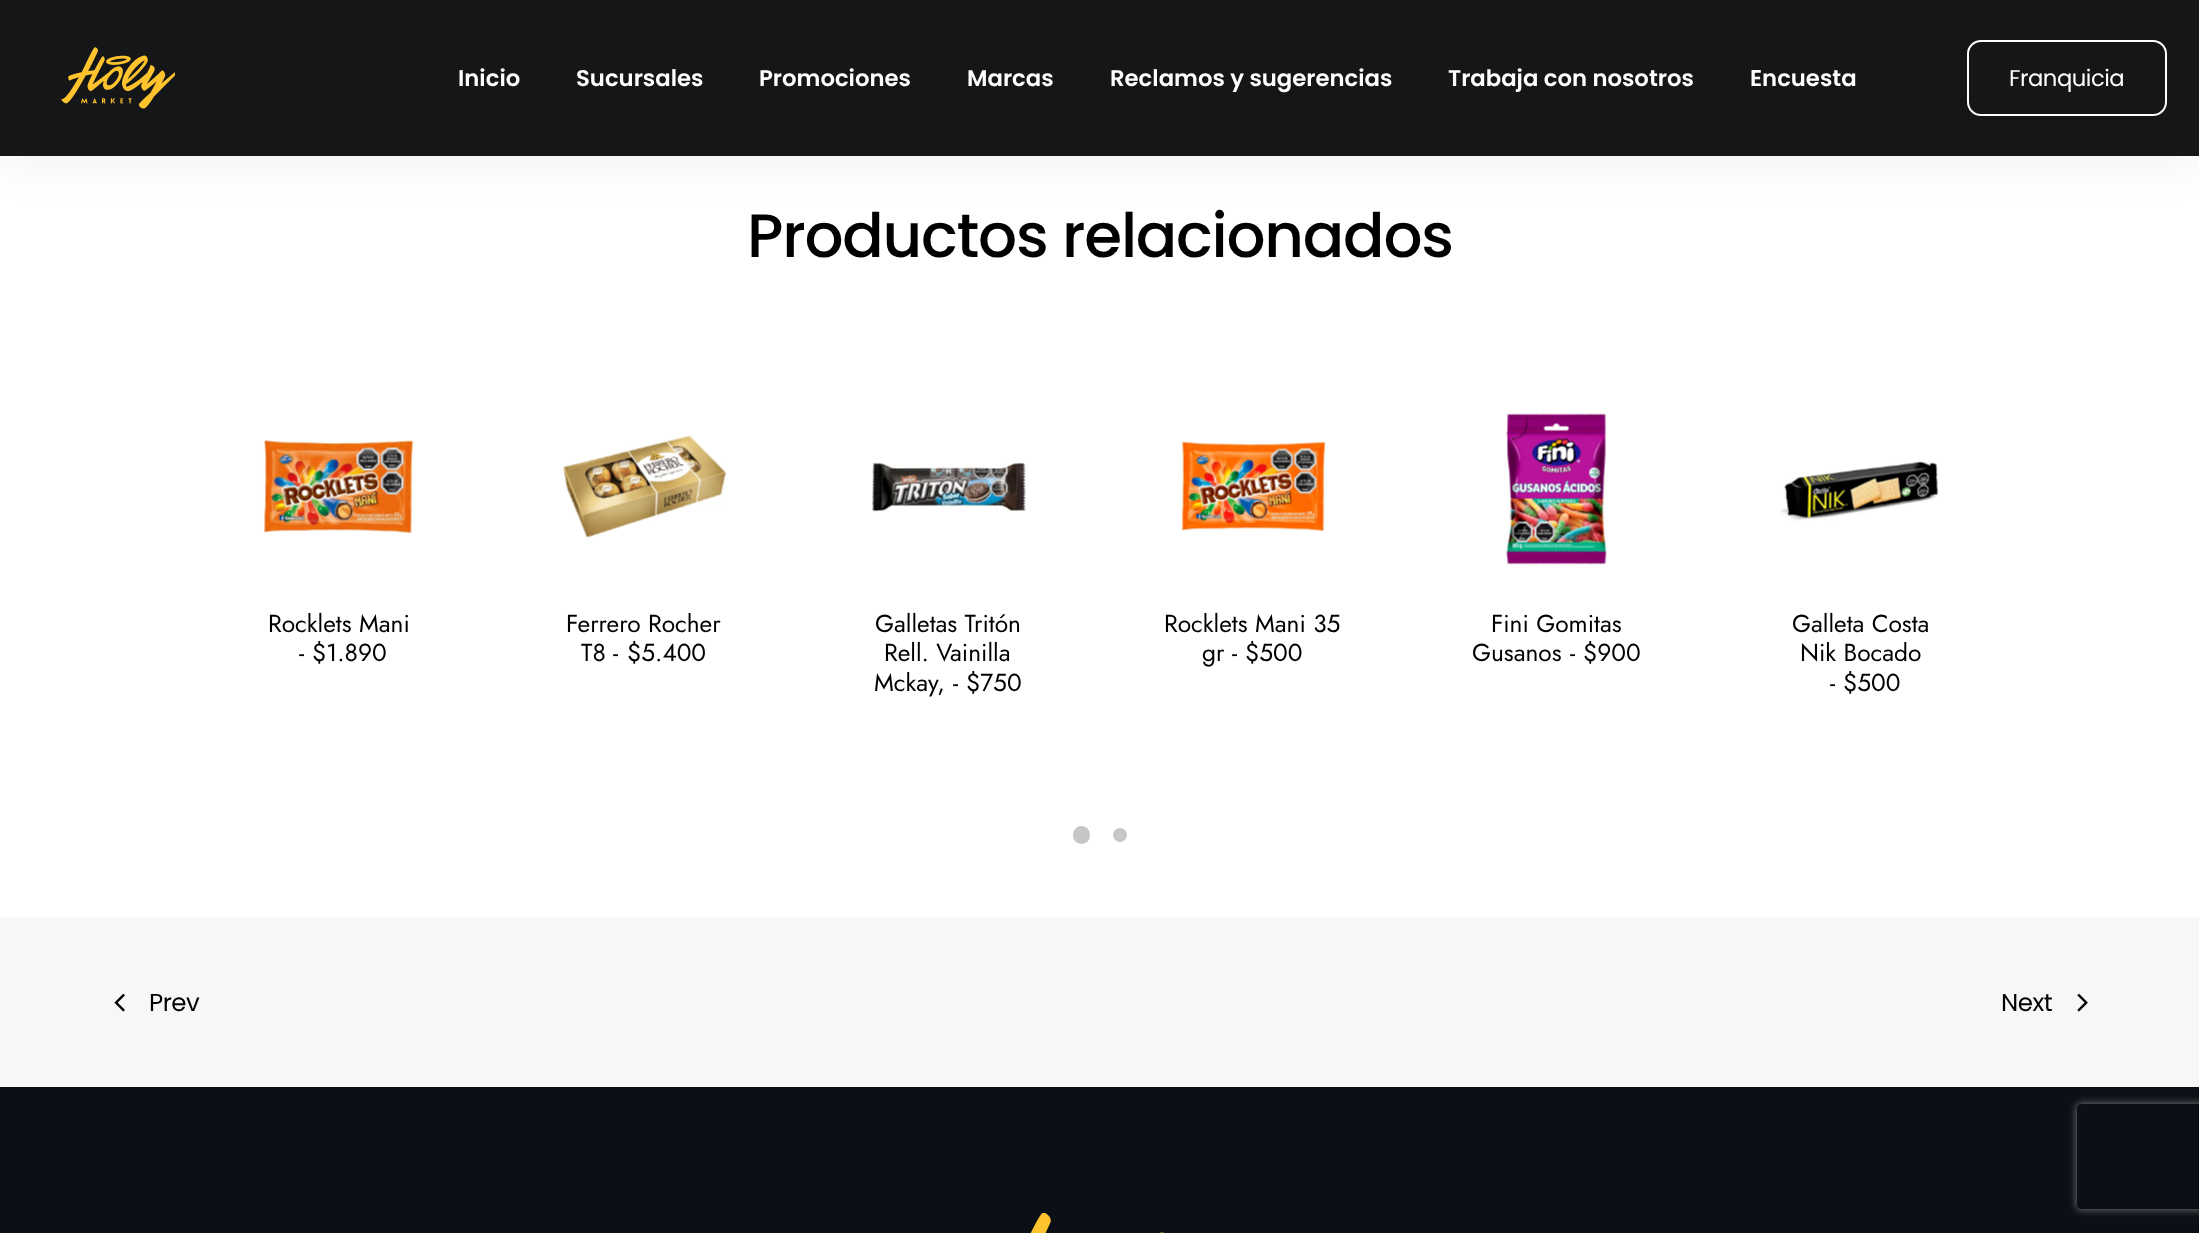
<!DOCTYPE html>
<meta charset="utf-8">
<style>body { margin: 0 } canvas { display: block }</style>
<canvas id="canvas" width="2199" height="1233"></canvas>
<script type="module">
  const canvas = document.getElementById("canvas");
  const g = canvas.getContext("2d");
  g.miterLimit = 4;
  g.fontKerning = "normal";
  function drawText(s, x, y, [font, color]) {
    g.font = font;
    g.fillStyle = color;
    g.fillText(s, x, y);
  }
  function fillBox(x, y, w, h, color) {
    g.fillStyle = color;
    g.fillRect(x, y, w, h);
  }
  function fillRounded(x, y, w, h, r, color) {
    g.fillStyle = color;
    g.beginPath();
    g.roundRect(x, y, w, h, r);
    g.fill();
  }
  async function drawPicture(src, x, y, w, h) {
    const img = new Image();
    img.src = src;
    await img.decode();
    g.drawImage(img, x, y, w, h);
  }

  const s1 = ["600 22.75px Poppins", "#FFFFFF"];
  const s2 = ["22.75px Poppins", "#FFFFFF"];
  const s3 = ["500 61.25px Poppins", "#000000"];
  const s4 = ["24.5px Jost", "#000000"];
  const s5 = ["24.5px Poppins", "#000000"];

  fillBox(0, 0, 2199, 1233, "#FFFFFF");
  g.fillStyle = "rgba(0, 0, 0, 0.07)";
  g.filter = "blur(26px)";
  g.beginPath();
  g.rect(-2, 0, 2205, 156);
  g.fill();
  g.filter = "none";
  fillBox(0, 0, 2199, 156, "#141618");
  await drawPicture("pic1.png", 61, 47, 114, 62);
  drawText("Inicio", 458, 86, s1);
  drawText("Sucursales", 576, 86, s1);
  drawText("Promociones", 759, 86, s1);
  drawText("Marcas", 967, 86, s1);
  drawText("Reclamos y sugerencias", 1110, 86, s1);
  drawText("Trabaja con nosotros", 1448, 86, s1);
  drawText("Encuesta", 1750, 86, s1);
  g.beginPath();
  g.roundRect(1968, 41, 198, 74, 13);
  g.strokeStyle = "#FFFFFF";
  g.lineWidth = 2;
  g.stroke();
  g.letterSpacing = "-0.5px";
  drawText("Franquicia", 2009, 86, s2);
  g.letterSpacing = "-1.25px";
  drawText("Productos relacionados", 747, 257, s3);
  await drawPicture("pic2.png", 263, 440, 151, 94);
  g.letterSpacing = "0px";
  drawText("Rocklets Mani", 268, 632, s4);
  drawText("-", 299, 661, s4);
  drawText("$1.890", 312, 661, s4);
  await drawPicture("pic3.png", 563, 435, 164, 103);
  drawText("Ferrero Rocher", 566, 632, s4);
  drawText("T8", 581, 661, s4);
  drawText("-", 613, 661, s4);
  drawText("$5.400", 627, 661, s4);
  await drawPicture("pic4.png", 872, 462, 154, 50);
  drawText("Galletas Tritón", 875, 632, s4);
  drawText("Rell. Vainilla", 884, 661, s4);
  drawText("Mckay,", 874, 691, s4);
  drawText("-", 953, 691, s4);
  drawText("$750", 966, 691, s4);
  await drawPicture("pic5.png", 1181, 441, 145, 91);
  drawText("Rocklets Mani 35", 1164, 632, s4);
  drawText("gr", 1202, 661, s4);
  drawText("-", 1232, 661, s4);
  drawText("$500", 1245, 661, s4);
  await drawPicture("pic6.png", 1506, 413, 101, 152);
  drawText("Fini Gomitas", 1491, 632, s4);
  drawText("Gusanos", 1472, 661, s4);
  drawText("-", 1570, 661, s4);
  drawText("$900", 1583, 661, s4);
  await drawPicture("pic7.png", 1780, 461, 159, 60);
  drawText("Galleta Costa", 1792, 632, s4);
  drawText("Nik Bocado", 1800, 661, s4);
  drawText("-", 1830, 691, s4);
  drawText("$500", 1843, 691, s4);
  fillRounded(1073, 826, 17, 18, 8.5, "#C6C6C7");
  g.beginPath();
  g.arc(1120, 835, 7, 0, Math.PI * 2);
  g.fill();
  fillBox(0, 917, 2199, 170, "#F7F7F7");
  await drawPicture("pic8.png", 114, 993, 11, 19);
  g.letterSpacing = "-0.5px";
  drawText("Prev", 149, 1011, s5);
  drawText("Next", 2001, 1011, s5);
  await drawPicture("pic9.png", 2077, 993, 11, 19);
  fillBox(0, 1087, 2199, 146, "#0C0F16");
  await drawPicture("pic10.png", 1030, 1213, 135, 20);
  g.save();
  g.beginPath();
  g.moveTo(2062, 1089);
  g.lineTo(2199, 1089);
  g.lineTo(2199, 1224);
  g.lineTo(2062, 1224);
  g.closePath();
  g.moveTo(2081, 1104);
  g.lineTo(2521, 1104);
  g.bezierCurveTo(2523, 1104, 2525, 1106, 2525, 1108);
  g.lineTo(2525, 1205);
  g.bezierCurveTo(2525, 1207, 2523, 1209, 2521, 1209);
  g.lineTo(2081, 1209);
  g.bezierCurveTo(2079, 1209, 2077, 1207, 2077, 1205);
  g.lineTo(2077, 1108);
  g.bezierCurveTo(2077, 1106, 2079, 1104, 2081, 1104);
  g.closePath();
  g.clip("evenodd");
  g.fillStyle = "#808080";
  g.filter = "blur(4.5px)";
  g.beginPath();
  g.roundRect(2077, 1104, 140, 105, 4);
  g.fill();
  g.filter = "none";
  g.restore();
</script>
